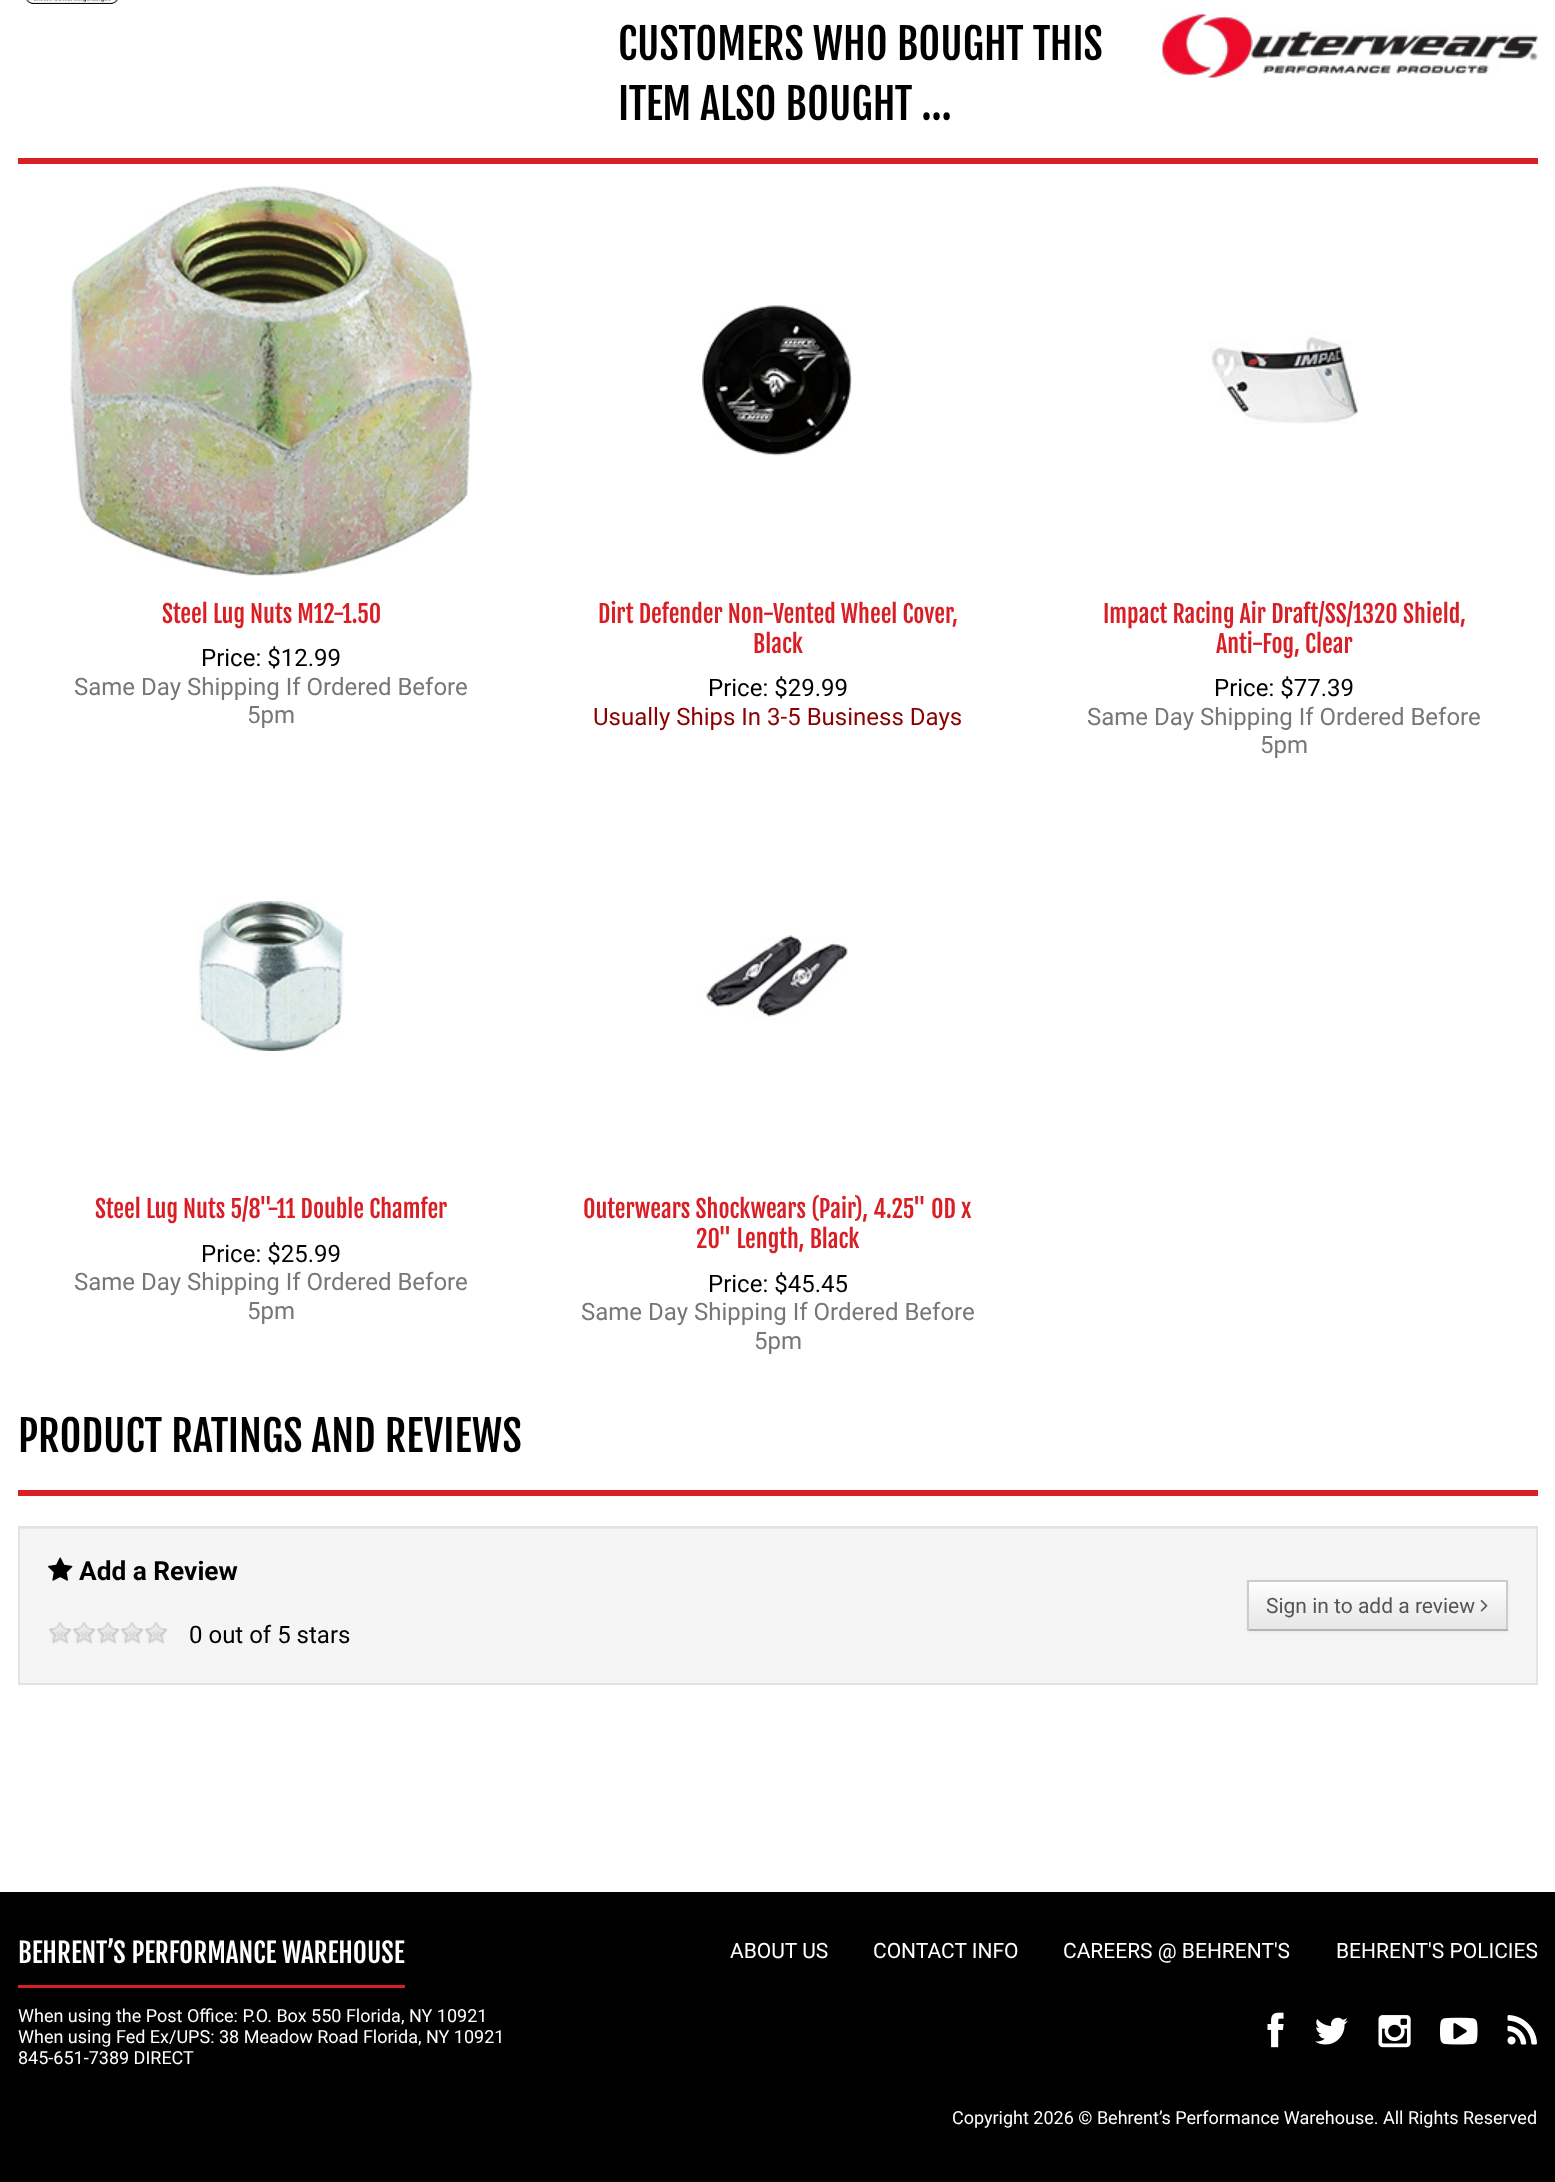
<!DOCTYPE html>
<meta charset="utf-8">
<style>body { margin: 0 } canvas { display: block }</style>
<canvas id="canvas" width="1555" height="2182"></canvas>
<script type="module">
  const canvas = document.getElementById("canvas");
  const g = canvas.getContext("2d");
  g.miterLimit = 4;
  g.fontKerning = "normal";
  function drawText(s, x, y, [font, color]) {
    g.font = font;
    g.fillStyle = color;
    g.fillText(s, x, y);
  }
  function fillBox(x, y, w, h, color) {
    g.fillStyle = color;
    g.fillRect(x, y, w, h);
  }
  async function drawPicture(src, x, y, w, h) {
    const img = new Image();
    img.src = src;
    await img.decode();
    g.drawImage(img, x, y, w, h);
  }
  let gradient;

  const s1 = ["42px Fjalla One", "#000000"];
  const s2 = ["24px Fjalla One", "#D91F26"];
  const s3 = ["24px Roboto", "#000000"];
  const s4 = ["24px Roboto", "#777777"];
  const s5 = ["24px Roboto", "#8B0000"];
  const s6 = ["bold 26.25px Roboto", "#000000"];
  const s7 = ["21px Roboto", "#555555"];
  const s8 = ["27px Fjalla One", "#FFFFFF"];
  const s9 = ["18px Roboto", "#FFFFFF"];
  const s10 = ["21px Roboto", "#FFFFFF"];

  fillBox(0, 0, 1555, 2182, "#FFFFFF");
  await drawPicture("pic1.png", 26, 0, 92, 4);
  await drawPicture("pic2.png", 1162, 14, 376, 64);
  fillBox(18, 158, 1520, 6, "#D91F26");
  drawText("CUSTOMERS WHO BOUGHT THIS", 618, 60, s1);
  drawText("ITEM ALSO BOUGHT …", 618, 120, s1);
  await drawPicture("pic3.png", 70, 185, 403, 391);
  drawText("Steel Lug Nuts M12-1.50", 162, 623, s2);
  drawText("Price: $12.99", 201, 666, s3);
  drawText("Same Day Shipping If Ordered Before", 74, 695, s4);
  drawText("5pm", 247, 723, s4);
  await drawPicture("pic4.png", 702, 305, 150, 151);
  drawText("Dirt Defender Non-Vented Wheel Cover,", 598, 623, s2);
  drawText("Black", 753, 653, s2);
  drawText("Price: $29.99", 708, 696, s3);
  drawText("Usually Ships In 3-5 Business Days", 593, 725, s5);
  await drawPicture("pic5.png", 1209, 331, 150, 93);
  drawText("Impact Racing Air Draft/SS/1320 Shield,", 1103, 623, s2);
  drawText("Anti-Fog, Clear", 1216, 653, s2);
  drawText("Price: $77.39", 1214, 696, s3);
  drawText("Same Day Shipping If Ordered Before", 1087, 725, s4);
  drawText("5pm", 1260, 753, s4);
  await drawPicture("pic6.png", 197, 901, 147, 150);
  drawText("Steel Lug Nuts 5/8\"-11 Double Chamfer", 95, 1218, s2);
  drawText("Price: $25.99", 201, 1262, s3);
  drawText("Same Day Shipping If Ordered Before", 74, 1290, s4);
  drawText("5pm", 247, 1319, s4);
  await drawPicture("pic7.png", 702, 935, 146, 86);
  drawText("Outerwears Shockwears (Pair), 4.25\" OD x", 583, 1218, s2);
  drawText("20\" Length, Black", 696, 1248, s2);
  drawText("Price: $45.45", 708, 1292, s3);
  drawText("Same Day Shipping If Ordered Before", 581, 1320, s4);
  drawText("5pm", 754, 1349, s4);
  fillBox(18, 1490, 1520, 6, "#D91F26");
  drawText("PRODUCT RATINGS AND REVIEWS", 18, 1452, s1);
  fillBox(20, 1529, 1516, 154, "#F5F5F5");
  fillBox(20, 1528, 1516, 1, "#E9E9E9");
  g.strokeStyle = "#E3E3E3";
  g.lineWidth = 2;
  g.strokeRect(19, 1527, 1518, 157);
  await drawPicture("pic8.png", 48, 1557, 25, 24);
  drawText("Add a Review", 79, 1580, s6);
  g.fillStyle = "rgba(0, 0, 0, 0.05)";
  g.filter = "blur(1.5px)";
  g.beginPath();
  g.rect(1247, 1581, 261, 51);
  g.fill();
  g.filter = "none";
  gradient = g.createLinearGradient(1377, 1581, 1377, 1629);
  gradient.addColorStop(0, "#FFFFFF");
  gradient.addColorStop(1, "#E6E6E6");
  g.fillStyle = gradient;
  g.fillRect(1249, 1582, 257, 47);
  fillBox(1247, 1580, 261, 2, "#CCCCCC");
  fillBox(1506, 1580, 2, 51, "#CCCCCC");
  fillBox(1247, 1629, 261, 2, "#B3B3B3");
  fillBox(1247, 1580, 2, 51, "#CCCCCC");
  drawText("Sign in to add a review", 1266, 1613, s7);
  await drawPicture("pic9.png", 1480, 1600, 8, 12);
  await drawPicture("pic10.png", 48, 1621, 24, 23);
  await drawPicture("pic10.png", 72, 1621, 24, 23);
  await drawPicture("pic10.png", 96, 1621, 24, 23);
  await drawPicture("pic10.png", 120, 1621, 24, 23);
  await drawPicture("pic10.png", 144, 1621, 24, 23);
  drawText("0 out of 5 stars", 189, 1643, s3);
  fillBox(0, 1892, 1555, 290, "#000000");
  fillBox(18, 1985, 387, 3, "#D91F26");
  drawText("BEHRENT’S PERFORMANCE WAREHOUSE", 18, 1963, s8);
  drawText("When using the Post Office: P.O. Box 550 Florida, NY 10921", 18, 2022, s9);
  drawText("When using Fed Ex/UPS: 38 Meadow Road Florida, NY 10921", 18, 2043, s9);
  drawText("845-651-7389 DIRECT", 18, 2064, s9);
  drawText("ABOUT US", 730, 1958, s10);
  drawText("CONTACT INFO", 873, 1958, s10);
  drawText("CAREERS @ BEHRENT'S", 1063, 1958, s10);
  drawText("BEHRENT'S POLICIES", 1336, 1958, s10);
  await drawPicture("pic11.png", 1267, 2012, 17, 36);
  await drawPicture("pic12.png", 1315, 2017, 33, 28);
  await drawPicture("pic13.png", 1378, 2015, 33, 33);
  await drawPicture("pic14.png", 1440, 2017, 38, 28);
  await drawPicture("pic15.png", 1507, 2015, 30, 30);
  drawText("Copyright 2026 © Behrent’s Performance Warehouse. All Rights Reserved", 952, 2124, s9);
</script>
